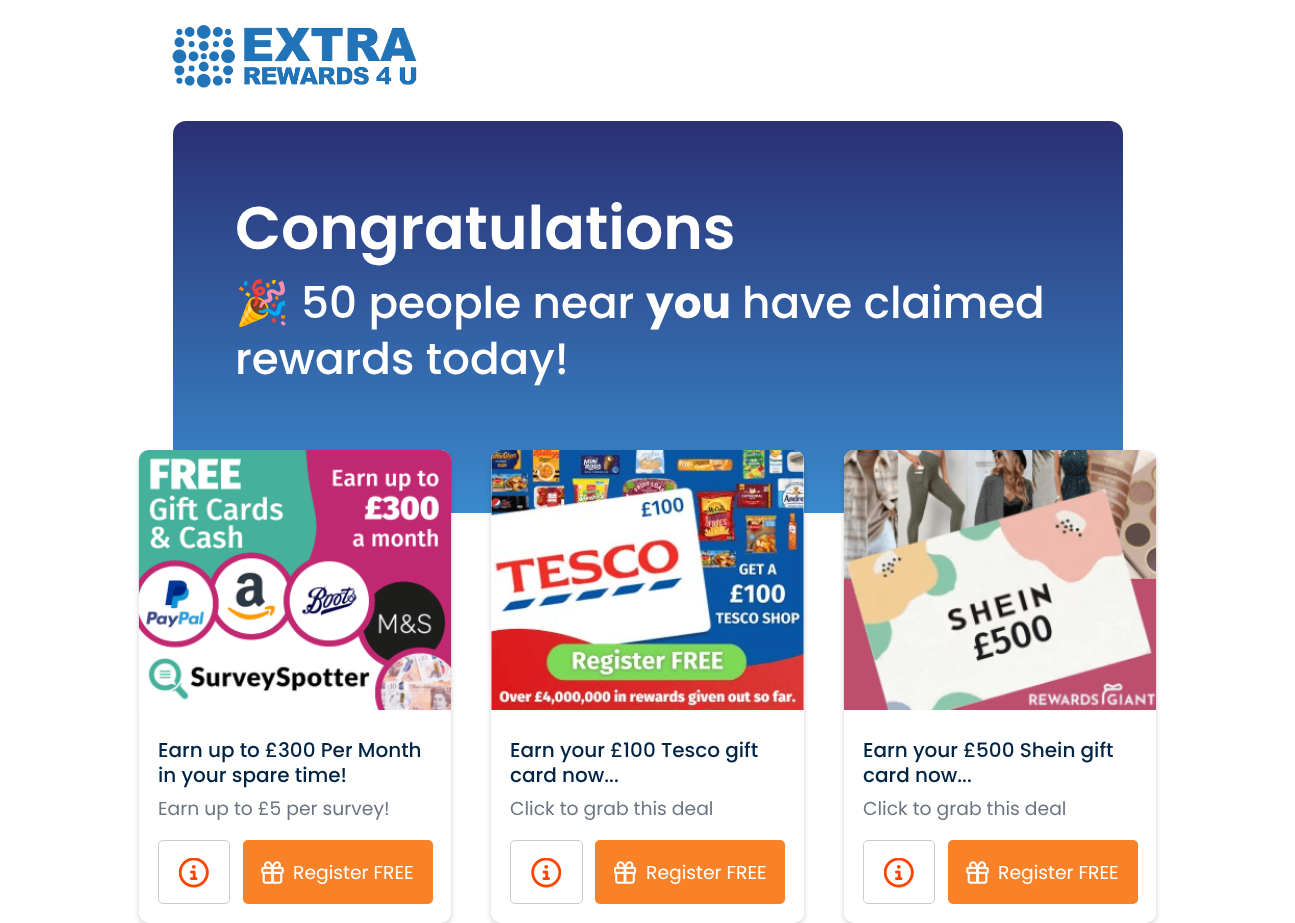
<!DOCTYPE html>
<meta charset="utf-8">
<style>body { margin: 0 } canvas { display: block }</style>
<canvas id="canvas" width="1295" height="923"></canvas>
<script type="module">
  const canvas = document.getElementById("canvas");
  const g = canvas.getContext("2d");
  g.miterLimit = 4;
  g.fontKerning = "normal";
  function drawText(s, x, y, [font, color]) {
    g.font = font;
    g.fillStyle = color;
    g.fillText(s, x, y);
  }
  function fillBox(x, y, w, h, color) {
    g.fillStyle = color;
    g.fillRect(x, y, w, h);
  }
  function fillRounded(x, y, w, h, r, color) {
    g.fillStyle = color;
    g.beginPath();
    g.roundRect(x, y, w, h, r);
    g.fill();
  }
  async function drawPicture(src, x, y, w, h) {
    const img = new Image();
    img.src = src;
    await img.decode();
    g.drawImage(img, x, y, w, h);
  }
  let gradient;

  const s1 = ["600 60px Poppins", "#FFFFFF"];
  const s2 = ["43.75px Noto Color Emoji", "#FFFFFF"];
  const s3 = ["500 43.75px Poppins", "#FFFFFF"];
  const s4 = ["bold 43.75px Poppins", "#FFFFFF"];
  const s5 = ["500 20px Poppins", "#002445"];
  const s6 = ["18.75px Poppins", "#6C7582"];
  const s7 = ["18.75px Poppins", "#FFFFFF"];

  fillBox(0, 0, 1295, 923, "#FFFFFF");
  await drawPicture("pic1.png", 172, 25, 245, 63);
  gradient = g.createLinearGradient(648, 513, 648, 121);
  gradient.addColorStop(0, "#3A8BCE");
  gradient.addColorStop(1, "#2A3074");
  g.fillStyle = gradient;
  g.beginPath();
  g.roundRect(173, 121, 950, 392, 13);
  g.fill();
  drawText("Congratulations", 235, 249, s1);
  drawText("🎉", 235, 318, s2);
  drawText("50 people near", 301, 318, s3);
  drawText("you", 646, 318, s4);
  drawText("have claimed", 742, 318, s3);
  drawText("rewards today!", 235, 374, s3);
  g.fillStyle = "rgba(0, 0, 0, 0.19)";
  g.filter = "blur(2.5px)";
  g.beginPath();
  g.roundRect(139, 453, 312, 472, 10);
  g.fill();
  g.filter = "none";
  fillRounded(139, 450, 312, 473, 10, "#FFFFFF");
  await drawPicture("pic2.png", 138, 450, 314, 260);
  drawText("Earn up to £300 Per Month", 158, 757, s5);
  drawText("in your spare time!", 158, 782, s5);
  drawText("Earn up to £5 per survey!", 158, 815, s6);
  g.beginPath();
  g.roundRect(158.5, 840.5, 71, 63, 4.5);
  g.strokeStyle = "#CCCCCC";
  g.stroke();
  await drawPicture("pic3.png", 179, 858, 30, 30);
  fillRounded(243, 840, 190, 64, 5, "#F98128");
  await drawPicture("pic4.png", 261, 861, 23, 23);
  drawText("Register FREE", 293, 879, s7);
  g.fillStyle = "rgba(0, 0, 0, 0.19)";
  g.filter = "blur(2.5px)";
  g.beginPath();
  g.roundRect(491, 453, 313, 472, 10);
  g.fill();
  g.filter = "none";
  fillRounded(491, 450, 313, 473, 10, "#FFFFFF");
  await drawPicture("pic5.png", 491, 450, 313, 260);
  drawText("Earn your £100 Tesco gift", 510, 757, s5);
  drawText("card now...", 510, 782, s5);
  drawText("Click to grab this deal", 510, 815, s6);
  g.beginPath();
  g.roundRect(510.5, 840.5, 72, 63, 4.5);
  g.stroke();
  await drawPicture("pic6.png", 531, 858, 30, 30);
  fillRounded(595, 840, 190, 64, 5, "#F98128");
  await drawPicture("pic7.png", 614, 861, 22, 23);
  drawText("Register FREE", 646, 879, s7);
  g.fillStyle = "rgba(0, 0, 0, 0.19)";
  g.filter = "blur(2.5px)";
  g.beginPath();
  g.roundRect(844, 453, 312, 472, 10);
  g.fill();
  g.filter = "none";
  fillRounded(844, 450, 312, 473, 10, "#FFFFFF");
  await drawPicture("pic8.png", 843, 450, 314, 260);
  drawText("Earn your £500 Shein gift", 863, 757, s5);
  drawText("card now...", 863, 782, s5);
  drawText("Click to grab this deal", 863, 815, s6);
  g.beginPath();
  g.roundRect(863.5, 840.5, 71, 63, 4.5);
  g.stroke();
  await drawPicture("pic3.png", 884, 858, 30, 30);
  fillRounded(948, 840, 190, 64, 5, "#F98128");
  await drawPicture("pic4.png", 966, 861, 23, 23);
  drawText("Register FREE", 998, 879, s7);
</script>
